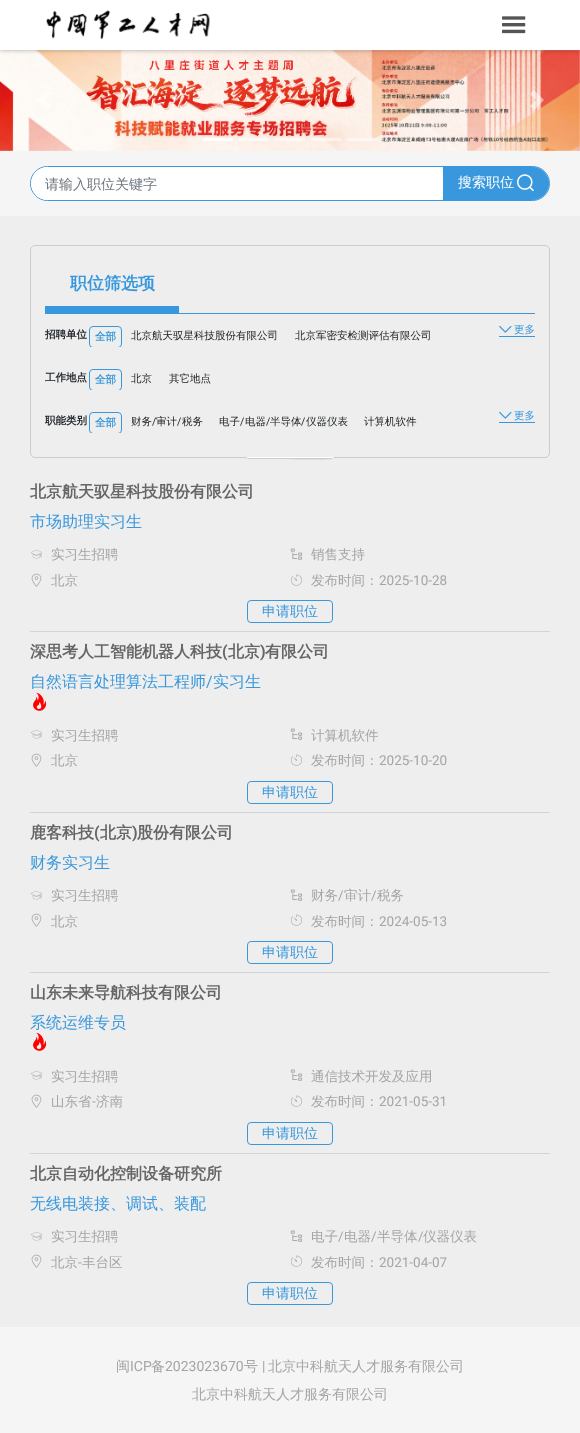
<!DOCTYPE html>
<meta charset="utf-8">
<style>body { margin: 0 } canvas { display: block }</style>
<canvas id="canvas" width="580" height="1433"></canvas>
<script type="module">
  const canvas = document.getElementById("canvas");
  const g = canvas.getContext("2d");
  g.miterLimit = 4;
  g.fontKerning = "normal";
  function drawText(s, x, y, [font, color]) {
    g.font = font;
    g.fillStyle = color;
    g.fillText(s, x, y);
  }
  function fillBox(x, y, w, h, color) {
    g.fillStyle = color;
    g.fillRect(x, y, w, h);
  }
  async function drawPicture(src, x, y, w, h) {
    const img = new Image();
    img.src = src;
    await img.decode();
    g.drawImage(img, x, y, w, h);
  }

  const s1 = ["500 14px WenQuanYi Zen Hei", "#6C757D"];
  const s2 = ["500 14px WenQuanYi Zen Hei", "#FFFFFF"];
  const s3 = ["bold 17px WenQuanYi Zen Hei", "#3998DD"];
  const s4 = ["bold 10.5px WenQuanYi Zen Hei", "#212529"];
  const s5 = ["bold 10.5px WenQuanYi Zen Hei", "#3998DD"];
  const s6 = ["500 10.5px WenQuanYi Zen Hei", "#212529"];
  const s7 = ["500 10.5px WenQuanYi Zen Hei", "#3998DD"];
  const s8 = ["10.5px Roboto", "#212529"];
  const s9 = ["bold 16px WenQuanYi Zen Hei", "#666666"];
  const s10 = ["500 16px WenQuanYi Zen Hei", "#3998DD"];
  const s11 = ["500 13.5px WenQuanYi Zen Hei", "#A5A5A5"];
  const s12 = ["13.5px Roboto", "#A5A5A5"];
  const s13 = ["500 14px WenQuanYi Zen Hei", "#3998DD"];
  const s14 = ["bold 16px Roboto", "#666666"];
  const s15 = ["16px Roboto", "#3998DD"];
  const s16 = ["500 14px WenQuanYi Zen Hei", "#A5A5A5"];
  const s17 = ["14px Roboto", "#A5A5A5"];

  fillBox(0, 0, 580, 1433, "#EEEEEE");
  await drawPicture("pic3.png", 0, 50, 580, 101);
  g.fillStyle = "rgba(0, 0, 0, 0.3)";
  g.filter = "blur(2.5px)";
  g.beginPath();
  g.rect(0, 0, 580, 50);
  g.fill();
  g.filter = "none";
  fillBox(0, 0, 580, 50, "#FFFFFF");
  await drawPicture("pic1.png", 46, 10, 164, 30);
  await drawPicture("pic2.png", 502, 16, 24, 18);
  g.fillStyle = "rgba(255, 255, 255, 0.5)";
  g.beginPath();
  g.moveTo(47, 90);
  g.lineTo(37, 100);
  g.lineTo(47, 110);
  g.lineTo(51, 106);
  g.lineTo(44.5, 100);
  g.lineTo(51, 94);
  g.closePath();
  g.fill();
  g.beginPath();
  g.moveTo(534, 90);
  g.lineTo(530, 94);
  g.lineTo(536.5, 100);
  g.lineTo(530, 106);
  g.lineTo(534, 110);
  g.lineTo(544, 100);
  g.closePath();
  g.fill();
  fillBox(203, 138, 30, 3, "#FFFFFF");
  fillBox(239, 138, 30, 3, "rgba(255, 255, 255, 0.5)");
  fillBox(275, 138, 30, 3, "rgba(255, 255, 255, 0.5)");
  fillBox(311, 138, 30, 3, "rgba(255, 255, 255, 0.5)");
  fillBox(347, 138, 30, 3, "rgba(255, 255, 255, 0.5)");
  fillBox(0, 151, 580, 65, "#F5F5F5");
  g.beginPath();
  g.roundRect(30.5, 166.5, 519, 34, 17);
  g.strokeStyle = "#3998DD";
  g.stroke();
  g.fillStyle = "#FFFFFF";
  g.beginPath();
  g.roundRect(31, 167, 412, 33, [16.5, 4, 4, 16.5]);
  g.fill();
  drawText("请输入职位关键字", 45, 189, s1);
  g.fillStyle = "#3998DD";
  g.beginPath();
  g.roundRect(443, 167, 106, 33, [0, 16.5, 16.5, 0]);
  g.fill();
  g.beginPath();
  g.moveTo(443, 167);
  g.lineTo(443, 200);
  g.lineTo(532, 200);
  g.lineTo(538, 199);
  g.lineTo(444, 199);
  g.lineTo(444, 168);
  g.lineTo(538, 168);
  g.lineTo(532, 167);
  g.closePath();
  g.moveTo(548, 178);
  g.lineTo(548, 189);
  g.bezierCurveTo(549, 186, 549, 181, 548, 178);
  g.closePath();
  g.fill("evenodd");
  drawText("搜索职位", 458, 187, s2);
  await drawPicture("pic4.png", 517, 174, 17, 17);
  g.beginPath();
  g.roundRect(30.5, 245.5, 519, 212, 4.5);
  g.strokeStyle = "#CCCCCC";
  g.stroke();
  fillBox(45, 313, 490, 1, "#3998DD");
  fillBox(45, 306, 134, 7, "#3998DD");
  drawText("职位筛选项", 70, 289, s3);
  drawText("招聘单位", 45, 338, s4);
  g.save();
  g.beginPath();
  g.rect(87, 324, 448, 23);
  g.clip();
  g.beginPath();
  g.roundRect(89.5, 326.5, 32, 21, 3.5);
  g.strokeStyle = "#3998DD";
  g.stroke();
  g.restore();
  drawText("全部", 95, 340, s5);
  drawText("北京航天驭星科技股份有限公司", 131, 339, s6);
  drawText("北京军密安检测评估有限公司", 295, 339, s6);
  fillBox(499, 336, 36, 1, "#3998DD");
  await drawPicture("pic5.png", 499, 325, 13, 8);
  drawText("更多", 514, 333, s7);
  drawText("工作地点", 45, 381, s4);
  g.save();
  g.beginPath();
  g.rect(87, 367, 448, 23);
  g.clip();
  g.beginPath();
  g.roundRect(89.5, 369.5, 32, 21, 3.5);
  g.strokeStyle = "#3998DD";
  g.stroke();
  g.restore();
  drawText("全部", 95, 383, s5);
  drawText("北京", 131, 382, s6);
  drawText("其它地点", 169, 382, s6);
  drawText("职能类别", 45, 424, s4);
  g.save();
  g.beginPath();
  g.rect(87, 410, 448, 23);
  g.clip();
  g.beginPath();
  g.roundRect(89.5, 412.5, 32, 21, 3.5);
  g.strokeStyle = "#3998DD";
  g.stroke();
  g.restore();
  drawText("全部", 95, 426, s5);
  drawText("财务", 131, 425, s6);
  drawText("/", 152, 425, s8);
  drawText("审计", 156, 425, s6);
  drawText("/", 177, 425, s8);
  drawText("税务", 182, 425, s6);
  drawText("电子", 219, 425, s6);
  drawText("/", 240, 425, s8);
  drawText("电器", 245, 425, s6);
  drawText("/", 266, 425, s8);
  drawText("半导体", 270, 425, s6);
  drawText("/", 301, 425, s8);
  drawText("仪器仪表", 306, 425, s6);
  drawText("计算机软件", 364, 425, s6);
  fillBox(499, 422, 36, 1, "#3998DD");
  await drawPicture("pic5.png", 499, 411, 13, 8);
  drawText("更多", 514, 419, s7);
  g.fillStyle = "#FFFFFF";
  g.beginPath();
  g.roundRect(247, 457, 87, 2, [0, 0, 2, 2]);
  g.fill();
  g.beginPath();
  g.moveTo(246, 457);
  g.lineTo(248, 458);
  g.lineTo(332, 458);
  g.lineTo(334, 457);
  g.closePath();
  g.fill();
  g.fillStyle = "#CCCCCC";
  g.beginPath();
  g.moveTo(333.5, 457);
  g.lineTo(333.5, 458);
  g.lineTo(333, 458.5);
  g.lineTo(332.5, 458);
  g.closePath();
  g.fill();
  g.beginPath();
  g.moveTo(248, 459);
  g.bezierCurveTo(256, 459, 332, 460, 333, 459);
  g.lineTo(332, 458);
  g.lineTo(248, 458);
  g.lineTo(247, 459);
  g.closePath();
  g.fill();
  g.beginPath();
  g.moveTo(247, 458.5);
  g.lineTo(246.5, 458);
  g.lineTo(246.5, 457);
  g.lineTo(247.5, 458);
  g.closePath();
  g.fill();
  fillBox(30, 631, 520, 1, "#CED4DA");
  drawText("北京航天驭星科技股份有限公司", 30, 497, s9);
  drawText("市场助理实习生", 30, 527, s10);
  await drawPicture("pic6.png", 30, 549, 12, 10);
  drawText("实习生招聘", 51, 559, s11);
  await drawPicture("pic7.png", 290, 548, 13, 12);
  drawText("销售支持", 311, 559, s11);
  await drawPicture("pic8.png", 31, 573, 11, 14);
  drawText("北京", 51, 585, s11);
  await drawPicture("pic9.png", 290, 574, 12, 12);
  drawText("发布时间：", 311, 585, s11);
  drawText("2025-10-28", 379, 585, s12);
  g.beginPath();
  g.roundRect(247.5, 600.5, 85, 22, 3.5);
  g.strokeStyle = "#3998DD";
  g.stroke();
  drawText("申请职位", 262, 616, s13);
  fillBox(30, 812, 520, 1, "#CED4DA");
  drawText("深思考人工智能机器人科技", 30, 657, s9);
  drawText("(", 222, 657, s14);
  drawText("北京", 228, 657, s9);
  drawText(")", 260, 657, s14);
  drawText("有限公司", 265, 657, s9);
  drawText("自然语言处理算法工程师", 30, 687, s10);
  drawText("/", 206, 687, s15);
  drawText("实习生", 213, 687, s10);
  await drawPicture("pic10.png", 33, 692, 14, 19);
  await drawPicture("pic6.png", 30, 729, 12, 10);
  drawText("实习生招聘", 51, 740, s11);
  await drawPicture("pic7.png", 290, 728, 13, 12);
  drawText("计算机软件", 311, 740, s11);
  await drawPicture("pic8.png", 31, 753, 11, 14);
  drawText("北京", 51, 765, s11);
  await drawPicture("pic9.png", 290, 754, 12, 12);
  drawText("发布时间：", 311, 765, s11);
  drawText("2025-10-20", 379, 765, s12);
  g.beginPath();
  g.roundRect(247.5, 781.5, 85, 22, 3.5);
  g.stroke();
  drawText("申请职位", 262, 797, s13);
  fillBox(30, 972, 520, 1, "#CED4DA");
  drawText("鹿客科技", 30, 838, s9);
  drawText("(", 94, 838, s14);
  drawText("北京", 100, 838, s9);
  drawText(")", 132, 838, s14);
  drawText("股份有限公司", 137, 838, s9);
  drawText("财务实习生", 30, 868, s10);
  await drawPicture("pic6.png", 30, 890, 12, 10);
  drawText("实习生招聘", 51, 900, s11);
  await drawPicture("pic7.png", 290, 889, 13, 12);
  drawText("财务", 311, 900, s11);
  drawText("/", 338, 900, s12);
  drawText("审计", 344, 900, s11);
  drawText("/", 371, 900, s12);
  drawText("税务", 377, 900, s11);
  await drawPicture("pic8.png", 31, 913, 11, 14);
  drawText("北京", 51, 926, s11);
  await drawPicture("pic9.png", 290, 914, 12, 12);
  drawText("发布时间：", 311, 926, s11);
  drawText("2024-05-13", 379, 926, s12);
  g.beginPath();
  g.roundRect(247.5, 941.5, 85, 22, 3.5);
  g.stroke();
  drawText("申请职位", 262, 957, s13);
  fillBox(30, 1153, 520, 1, "#CED4DA");
  drawText("山东未来导航科技有限公司", 30, 998, s9);
  drawText("系统运维专员", 30, 1028, s10);
  await drawPicture("pic10.png", 33, 1032, 14, 19);
  await drawPicture("pic6.png", 30, 1070, 12, 10);
  drawText("实习生招聘", 51, 1081, s11);
  await drawPicture("pic7.png", 290, 1069, 13, 12);
  drawText("通信技术开发及应用", 311, 1081, s11);
  await drawPicture("pic8.png", 31, 1094, 11, 14);
  drawText("山东省", 51, 1106, s11);
  drawText("-", 92, 1106, s12);
  drawText("济南", 96, 1106, s11);
  await drawPicture("pic9.png", 290, 1095, 12, 12);
  drawText("发布时间：", 311, 1106, s11);
  drawText("2021-05-31", 379, 1106, s12);
  g.beginPath();
  g.roundRect(247.5, 1122.5, 85, 22, 3.5);
  g.stroke();
  drawText("申请职位", 262, 1138, s13);
  drawText("北京自动化控制设备研究所", 30, 1179, s9);
  drawText("无线电装接、调试、装配", 30, 1209, s10);
  await drawPicture("pic6.png", 30, 1231, 12, 10);
  drawText("实习生招聘", 51, 1241, s11);
  await drawPicture("pic7.png", 290, 1230, 13, 12);
  drawText("电子", 311, 1241, s11);
  drawText("/", 338, 1241, s12);
  drawText("电器", 344, 1241, s11);
  drawText("/", 371, 1241, s12);
  drawText("半导体", 377, 1241, s11);
  drawText("/", 418, 1241, s12);
  drawText("仪器仪表", 423, 1241, s11);
  await drawPicture("pic8.png", 31, 1254, 11, 14);
  drawText("北京", 51, 1267, s11);
  drawText("-", 78, 1267, s12);
  drawText("丰台区", 82, 1267, s11);
  await drawPicture("pic9.png", 290, 1255, 12, 12);
  drawText("发布时间：", 311, 1267, s11);
  drawText("2021-04-07", 379, 1267, s12);
  g.beginPath();
  g.roundRect(247.5, 1282.5, 85, 22, 3.5);
  g.stroke();
  drawText("申请职位", 262, 1298, s13);
  fillBox(0, 1327, 580, 106, "#F5F5F5");
  drawText("闽", 116, 1371, s16);
  drawText("ICP", 130, 1371, s17);
  drawText("备", 151, 1371, s16);
  drawText("2023023670", 165, 1371, s17);
  drawText("号", 244, 1371, s16);
  drawText("|", 262, 1371, s17);
  drawText("北京中科航天人才服务有限公司", 268, 1371, s16);
  drawText("北京中科航天人才服务有限公司", 192, 1399, s16);
</script>
